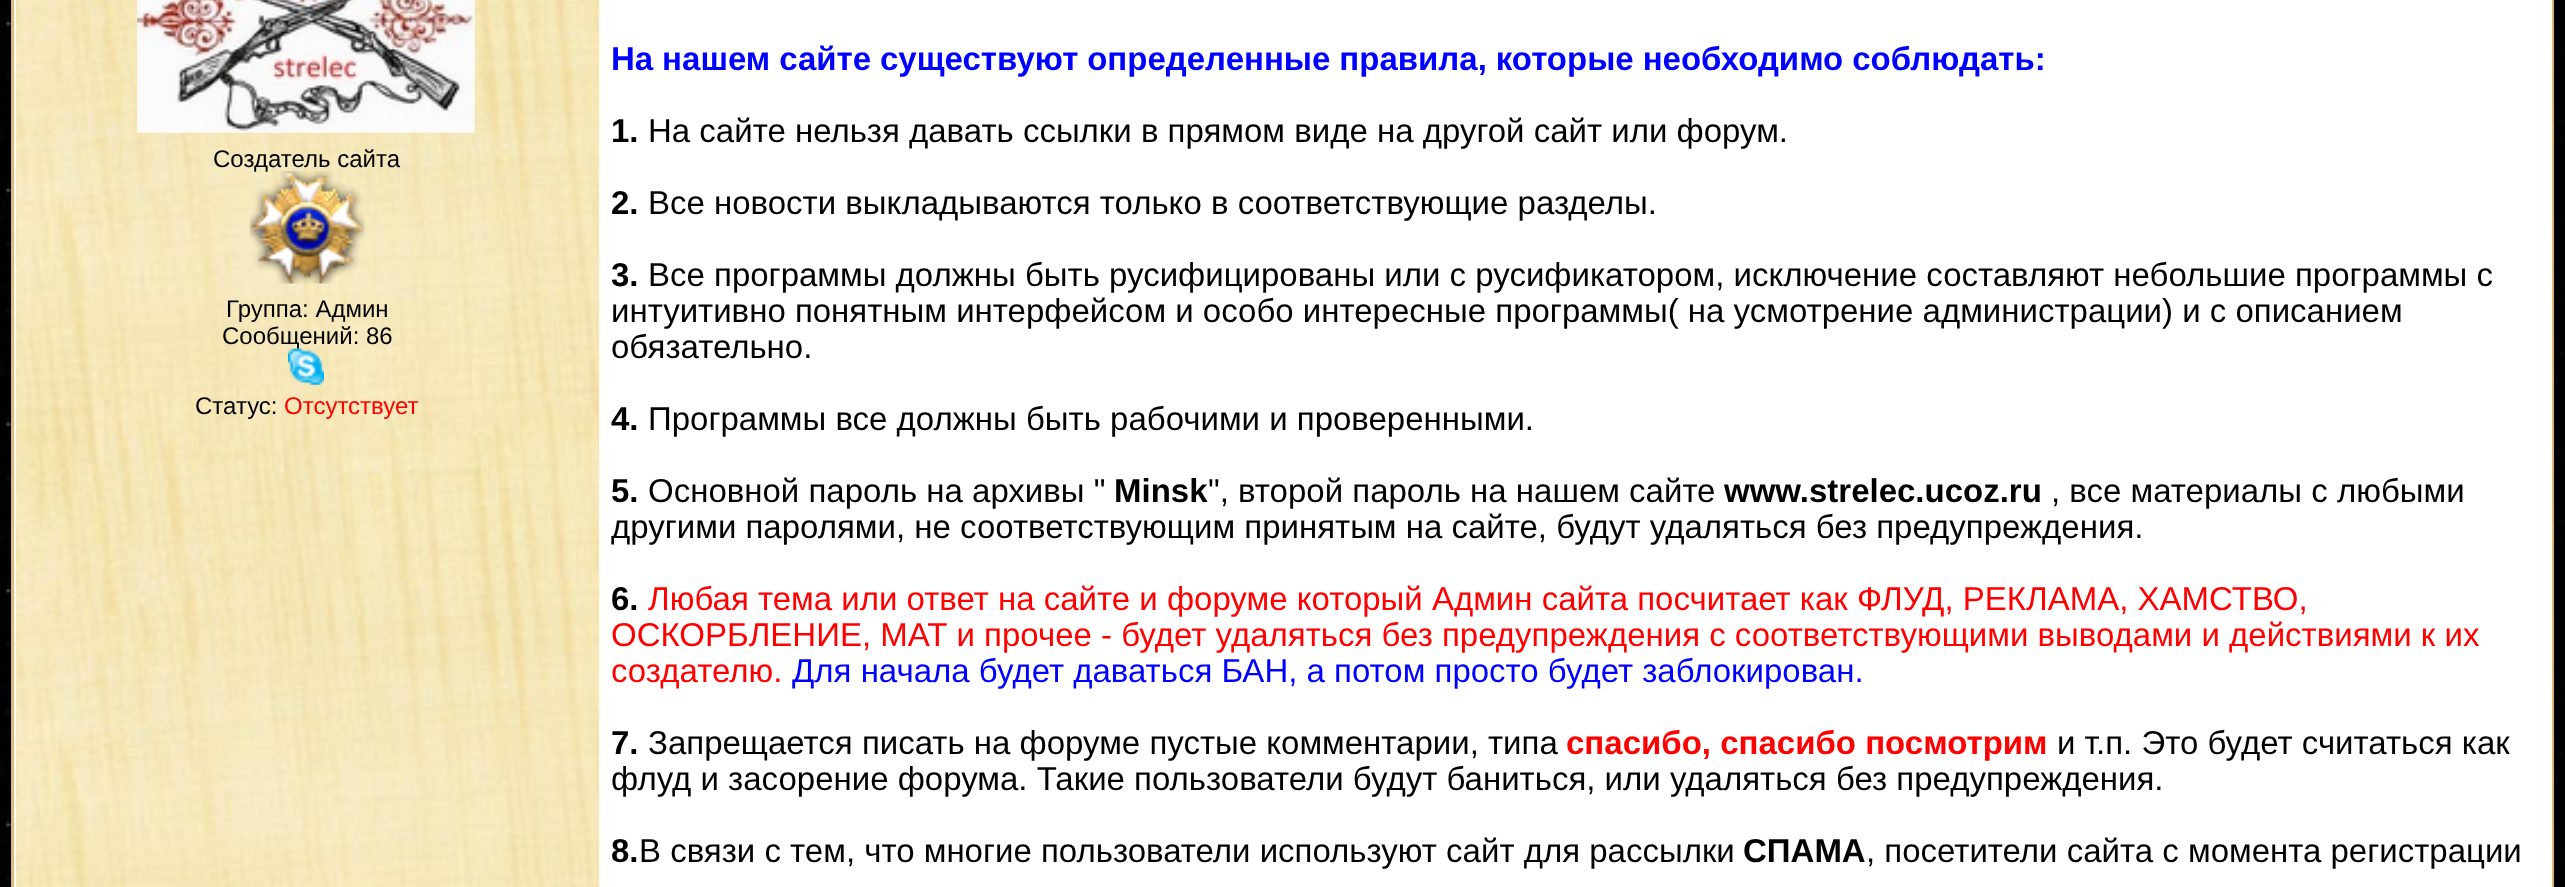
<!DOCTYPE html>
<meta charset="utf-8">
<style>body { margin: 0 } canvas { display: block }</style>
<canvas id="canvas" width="2565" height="887"></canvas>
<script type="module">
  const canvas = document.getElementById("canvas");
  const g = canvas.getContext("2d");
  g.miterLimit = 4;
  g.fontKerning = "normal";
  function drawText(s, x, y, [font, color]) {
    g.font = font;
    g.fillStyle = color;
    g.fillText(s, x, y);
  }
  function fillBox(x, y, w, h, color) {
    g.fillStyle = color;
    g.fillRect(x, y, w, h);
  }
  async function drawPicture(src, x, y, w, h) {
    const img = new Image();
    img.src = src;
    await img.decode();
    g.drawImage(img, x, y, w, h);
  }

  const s1 = ["24px Liberation Sans", "#000000"];
  const s2 = ["24px Liberation Sans", "#FF0000"];
  const s3 = ["bold 33px Liberation Sans", "#0000FF"];
  const s4 = ["bold 33px Liberation Sans", "#000000"];
  const s5 = ["33px Liberation Sans", "#000000"];
  const s6 = ["33px Liberation Sans", "#FF0000"];
  const s7 = ["33px Liberation Sans", "#0000FF"];
  const s8 = ["bold 33px Liberation Sans", "#FF0000"];

  fillBox(0, 0, 2565, 887, "#FFFFFF");
  await drawPicture("pic1.png", 0, 0, 2565, 887);
  fillBox(11, 0, 2543, 887, "#D8BA83");
  fillBox(14, 0, 2538, 887, "#FDFCF4");
  fillBox(598, 0, 1, 887, "#F2E7BA");
  await drawPicture("pic2.png", 15, 0, 584, 887);
  await drawPicture("pic3.png", 137, 0, 338, 133);
  drawText("Создатель сайта", 213, 167, s1);
  await drawPicture("pic4.png", 249, 171, 116, 113);
  drawText("Группа: Админ", 226, 317, s1);
  drawText("Сообщений: 86", 222, 344, s1);
  await drawPicture("pic5.png", 288, 348, 36, 37);
  drawText("Статус:", 195, 414, s1);
  drawText("Отсутствует", 284, 414, s2);
  fillBox(601, 0, 1948, 887, "#FFFFFF");
  g.wordSpacing = "-0.25px";
  drawText("На нашем сайте существуют определенные правила, которые необходимо соблюдать:", 611, 70, s3);
  g.wordSpacing = "0px";
  drawText("1.", 611, 142, s4);
  drawText("На сайте нельзя давать ссылки в прямом виде на другой сайт или форум.", 648, 142, s5);
  drawText("2.", 611, 214, s4);
  drawText("Все новости выкладываются только в соответствующие разделы.", 648, 214, s5);
  drawText("3.", 611, 286, s4);
  drawText("Все программы должны быть русифицированы или с русификатором, исключение составляют небольшие программы с", 648, 286, s5);
  drawText("интуитивно понятным интерфейсом и особо интересные программы( на усмотрение администрации) и с описанием", 611, 322, s5);
  drawText("обязательно.", 611, 358, s5);
  drawText("4.", 611, 430, s4);
  drawText("Программы все должны быть рабочими и проверенными.", 648, 430, s5);
  drawText("5.", 611, 502, s4);
  drawText("Основной пароль на архивы \"", 648, 502, s5);
  drawText("Minsk", 1114, 502, s4);
  drawText("\", второй пароль на нашем сайте", 1208, 502, s5);
  drawText("www.strelec.ucoz.ru", 1724, 502, s4);
  drawText(", все материалы с любыми", 2051, 502, s5);
  drawText("другими паролями, не соответствующим принятым на сайте, будут удаляться без предупреждения.", 611, 538, s5);
  drawText("6.", 611, 610, s4);
  drawText("Любая тема или ответ на сайте и форуме который Админ сайта посчитает как ФЛУД, РЕКЛАМА, ХАМСТВО,", 648, 610, s6);
  drawText("ОСКОРБЛЕНИЕ, МАТ и прочее - будет удаляться без предупреждения с соответствующими выводами и действиями к их", 611, 646, s6);
  drawText("создателю.", 611, 682, s6);
  drawText("Для начала будет даваться БАН, а потом просто будет заблокирован.", 792, 682, s7);
  drawText("7.", 611, 754, s4);
  drawText("Запрещается писать на форуме пустые комментарии, типа", 648, 754, s5);
  drawText("спасибо, спасибо посмотрим", 1566, 754, s8);
  drawText("и т.п. Это будет считаться как", 2057, 754, s5);
  drawText("флуд и засорение форума. Такие пользователи будут баниться, или удаляться без предупреждения.", 611, 790, s5);
  drawText("8.", 611, 862, s4);
  drawText("В связи с тем, что многие пользователи используют сайт для рассылки", 639, 862, s5);
  drawText("СПАМА", 1743, 862, s4);
  drawText(", посетители сайта с момента регистрации", 1866, 862, s5);
</script>
